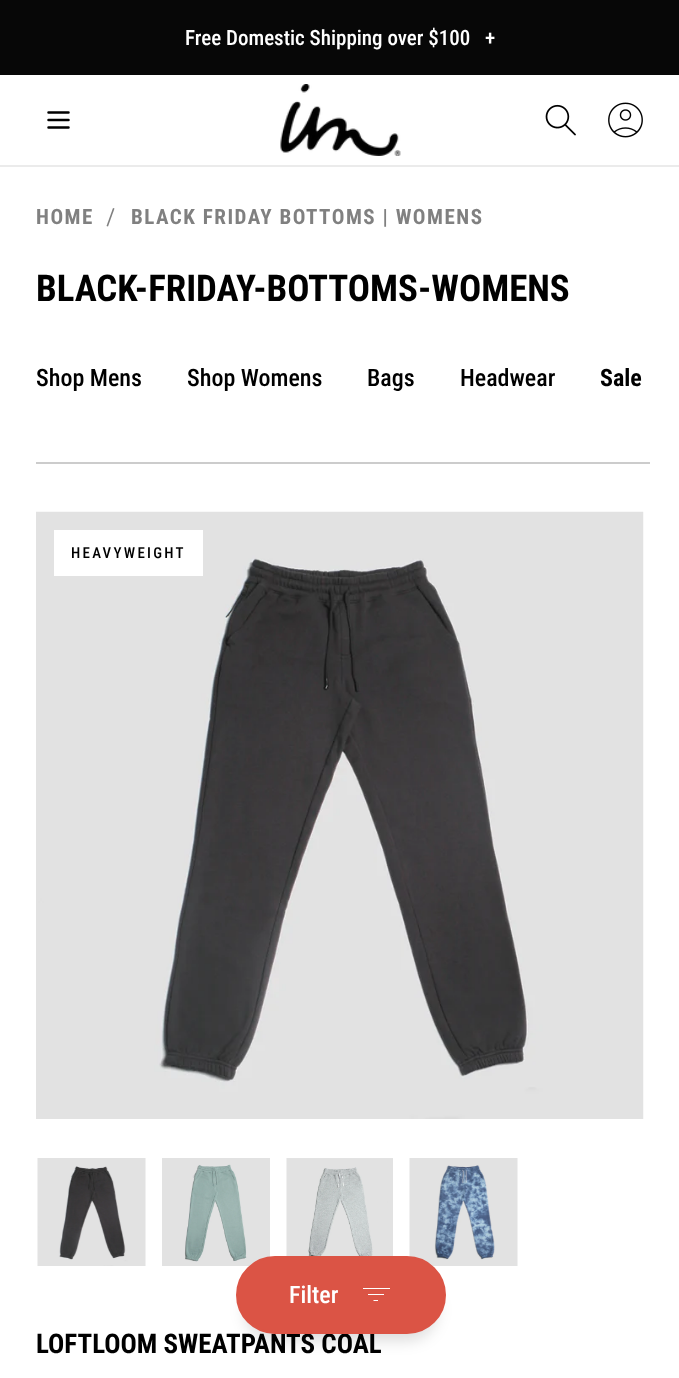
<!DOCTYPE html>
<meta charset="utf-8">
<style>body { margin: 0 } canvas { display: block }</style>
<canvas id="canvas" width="679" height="1378"></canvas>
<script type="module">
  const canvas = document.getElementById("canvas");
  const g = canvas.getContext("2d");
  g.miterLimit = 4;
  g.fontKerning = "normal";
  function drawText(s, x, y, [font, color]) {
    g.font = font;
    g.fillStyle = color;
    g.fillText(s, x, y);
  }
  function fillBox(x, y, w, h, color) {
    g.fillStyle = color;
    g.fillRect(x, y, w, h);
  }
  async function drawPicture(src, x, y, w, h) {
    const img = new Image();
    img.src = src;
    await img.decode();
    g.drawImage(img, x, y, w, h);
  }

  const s1 = ["500 21px Roboto Condensed", "#FFFFFF"];
  const s2 = ["bold 21px Roboto Condensed", "#808080"];
  const s3 = ["bold 36.9px Roboto Condensed", "#000000"];
  const s4 = ["500 24px Roboto Condensed", "#000000"];
  const s5 = ["bold 24px Roboto Condensed", "#000000"];
  const s6 = ["500 15px Roboto Condensed", "#000000"];
  const s7 = ["bold 27px Roboto Condensed", "#000000"];
  const s8 = ["500 24px Roboto Condensed", "#FFFFFF"];

  fillBox(0, 0, 679, 1378, "#FFFFFF");
  fillBox(0, 0, 679, 75, "#070707");
  drawText("Free Domestic Shipping over $100", 185, 45, s1);
  drawText("+", 485, 45, s1);
  fillBox(0, 165, 679, 2, "#EBEBEB");
  g.beginPath();
  g.moveTo(48.5, 112.5);
  g.lineTo(68.5, 112.5);
  g.moveTo(48.5, 120);
  g.lineTo(68.5, 120);
  g.moveTo(48.5, 127.5);
  g.lineTo(68.5, 127.5);
  g.strokeStyle = "#000000";
  g.lineWidth = 2.5;
  g.lineCap = "round";
  g.lineJoin = "round";
  g.stroke();
  await drawPicture("pic1.png", 280, 84, 121, 72);
  await drawPicture("pic2.png", 545, 104, 31, 32);
  await drawPicture("pic3.png", 608, 102, 35, 36);
  g.letterSpacing = "1.5px";
  drawText("HOME", 36, 224, s2);
  g.beginPath();
  g.moveTo(113, 208);
  g.lineTo(114.5, 208.5);
  g.lineTo(108, 226.5);
  g.lineTo(106.5, 226);
  g.closePath();
  g.fill();
  drawText("BLACK FRIDAY BOTTOMS | WOMENS", 131, 224, s2);
  g.letterSpacing = "0px";
  drawText("BLACK-FRIDAY-BOTTOMS-WOMENS", 36, 301, s3);
  drawText("Shop Mens", 36, 386, s4);
  drawText("Shop Womens", 187, 386, s4);
  drawText("Bags", 367, 386, s4);
  drawText("Headwear", 460, 386, s4);
  drawText("Sale", 600, 386, s5);
  fillBox(36, 462, 614, 2, "#CCCCCC");
  await drawPicture("pic4.png", 36, 511, 608, 608);
  fillBox(54, 530, 149, 46, "#FFFFFF");
  g.letterSpacing = "2.25px";
  drawText("HEAVYWEIGHT", 71, 558, s6);
  await drawPicture("pic5.png", 37, 1158, 109, 108);
  await drawPicture("pic6.png", 162, 1158, 108, 108);
  await drawPicture("pic7.png", 286, 1158, 107, 98);
  await drawPicture("pic8.png", 409, 1158, 109, 108);
  g.letterSpacing = "0px";
  drawText("LOFTLOOM SWEATPANTS COAL", 36, 1353, s7);
  g.fillStyle = "rgba(7, 7, 7, 0.15)";
  g.filter = "blur(7.5px)";
  g.beginPath();
  g.roundRect(245, 1280, 192, 60, 30);
  g.fill();
  g.filter = "none";
  g.fillStyle = "#DB5445";
  g.beginPath();
  g.roundRect(237, 1257, 208, 76, 38);
  g.fill();
  g.strokeStyle = "#DB5445";
  g.lineWidth = 2;
  g.lineJoin = "miter";
  g.stroke();
  drawText("Filter", 289, 1303, s8);
  fillBox(363, 1288, 27, 1, "#FFFFFF");
  fillBox(368, 1294, 16, 1, "#FFFFFF");
  g.beginPath();
  g.moveTo(373.5, 1300);
  g.lineTo(378, 1300);
  g.lineTo(378, 1301);
  g.lineTo(373.5, 1301);
  g.closePath();
  g.fill();
</script>
